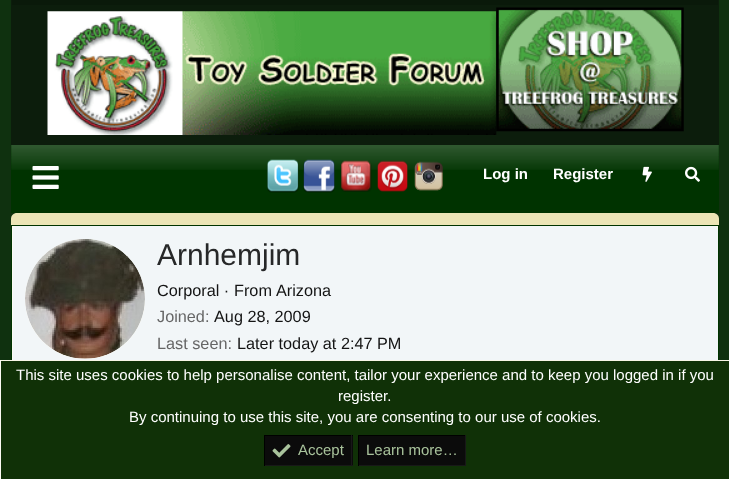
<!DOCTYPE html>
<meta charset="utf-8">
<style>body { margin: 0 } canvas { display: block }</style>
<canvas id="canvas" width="729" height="479"></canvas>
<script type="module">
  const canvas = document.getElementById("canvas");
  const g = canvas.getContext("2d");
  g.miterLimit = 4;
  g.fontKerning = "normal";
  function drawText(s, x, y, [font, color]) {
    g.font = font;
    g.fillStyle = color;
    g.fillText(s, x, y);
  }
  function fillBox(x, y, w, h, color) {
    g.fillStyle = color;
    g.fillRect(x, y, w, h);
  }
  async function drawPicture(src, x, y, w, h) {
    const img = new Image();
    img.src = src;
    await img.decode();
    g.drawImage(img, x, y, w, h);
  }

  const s1 = ["bold 15px Liberation Sans", "#FFFFFF"];
  const s2 = ["30px Liberation Sans", "#272829"];
  const s3 = ["16.25px Liberation Sans", "#141414"];
  const s4 = ["16.25px Liberation Sans", "#666666"];
  const s5 = ["15px Liberation Sans", "#FFFFFF"];
  const s6 = ["15px Liberation Sans", "#A9C39C"];

  fillBox(0, 0, 729, 479, "#0F310F");
  fillBox(11, 0, 708, 145, "#0C1D0C");
  fillBox(12, 0, 706, 5, "#0A190A");
  await drawPicture("pic1.png", 47, 11, 450, 124);
  await drawPicture("pic2.png", 496, 7, 188, 125);
  fillBox(11, 145, 708, 68, "#003300");
  await drawPicture("pic3.png", 11, 145, 708, 25);
  await drawPicture("pic4.png", 32, 166, 27, 23);
  await drawPicture("pic5.png", 267, 159, 32, 34);
  await drawPicture("pic6.png", 303, 159, 32, 34);
  await drawPicture("pic7.png", 340, 160, 32, 32);
  await drawPicture("pic8.png", 377, 160, 31, 32);
  await drawPicture("pic9.png", 414, 161, 29, 30);
  drawText("Log in", 483, 179, s1);
  drawText("Register", 553, 179, s1);
  await drawPicture("pic10.png", 642, 166, 10, 16);
  await drawPicture("pic11.png", 685, 166, 15, 16);
  g.fillStyle = "#ECE5B6";
  g.beginPath();
  g.moveTo(17, 213);
  g.lineTo(713, 213);
  g.bezierCurveTo(716.5, 213, 719, 215.5, 719, 219);
  g.lineTo(719, 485);
  g.lineTo(11, 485);
  g.lineTo(11, 219);
  g.bezierCurveTo(11, 215.5, 13.5, 213, 17, 213);
  g.closePath();
  g.fill();
  fillBox(12, 226, 706, 134, "#FCFBF3");
  g.strokeStyle = "#003300";
  g.strokeRect(11.5, 225.5, 707, 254);
  g.fillStyle = "#F2F6F8";
  g.beginPath();
  g.roundRect(13, 226, 705, 143, [4, 4, 0, 0]);
  g.fill();
  g.fillStyle = "#FCFBF3";
  g.beginPath();
  g.arc(85, 299, 60, 0, Math.PI * 2);
  g.fill();
  await drawPicture("pic12.png", 25, 239, 120, 120);
  drawText("Arnhemjim", 157, 265, s2);
  drawText("Corporal ·", 157, 296, s3);
  drawText("From", 234, 296, s3);
  drawText("Arizona", 276, 296, s3);
  drawText("Joined:", 157, 322, s4);
  drawText("Aug 28, 2009", 214, 322, s3);
  drawText("Last seen:", 157, 349, s4);
  drawText("Later today at 2:47 PM", 237, 349, s3);
  fillBox(1, 361, 728, 118, "#103107");
  fillBox(0, 360, 729, 1, "#F9F6E7");
  fillBox(0, 360, 1, 119, "#FCFBF3");
  drawText("This site uses cookies to help personalise content, tailor your experience and to keep you logged in if you", 16, 380, s5);
  drawText("register.", 338, 401, s5);
  drawText("By continuing to use this site, you are consenting to our use of cookies.", 129, 422, s5);
  fillBox(265, 436, 88, 29, "#0B0B0B");
  fillBox(264, 435, 89, 1, "#000000");
  fillBox(351, 435, 1, 31, "#181818");
  fillBox(264, 465, 89, 1, "#181818");
  fillBox(264, 435, 1, 31, "#000000");
  await drawPicture("pic13.png", 272, 444, 19, 14);
  drawText("Accept", 298, 455, s6);
  fillBox(359, 436, 106, 29, "#0B0B0B");
  fillBox(358, 435, 108, 1, "#000000");
  fillBox(465, 435, 1, 31, "#181818");
  fillBox(358, 465, 108, 1, "#181818");
  fillBox(358, 435, 1, 31, "#000000");
  drawText("Learn more…", 366, 455, s6);
</script>
